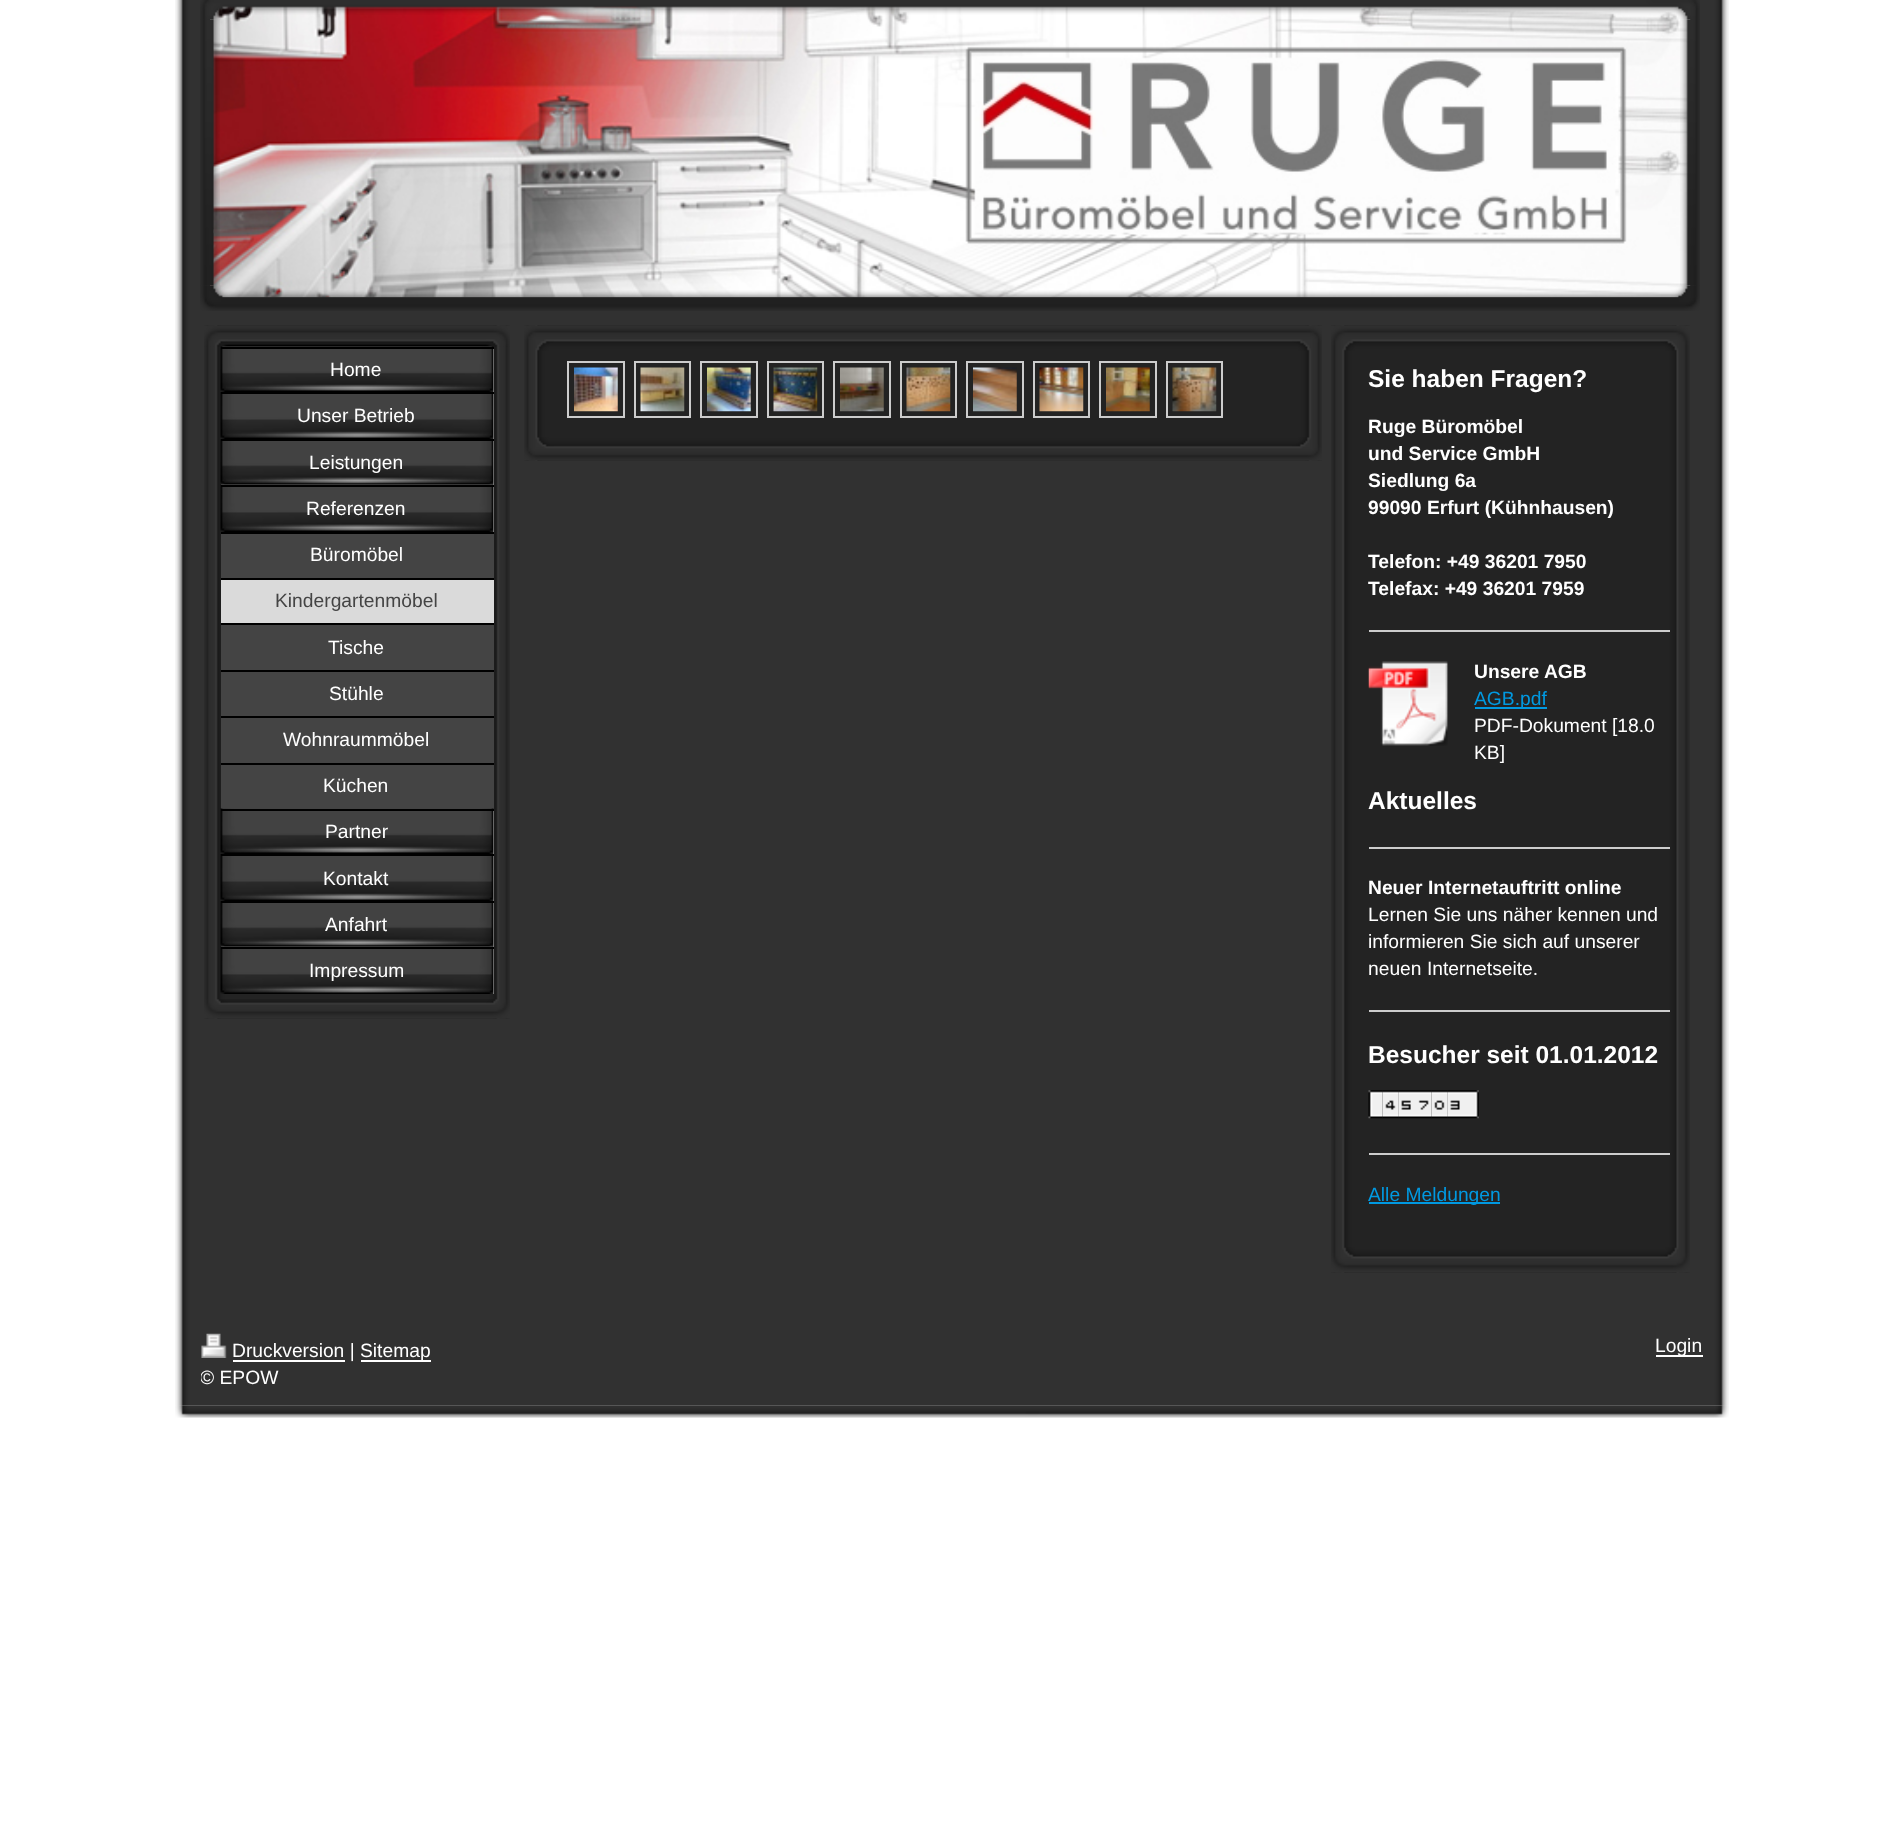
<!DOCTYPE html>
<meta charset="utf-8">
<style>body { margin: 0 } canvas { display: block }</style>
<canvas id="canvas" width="1901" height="1823"></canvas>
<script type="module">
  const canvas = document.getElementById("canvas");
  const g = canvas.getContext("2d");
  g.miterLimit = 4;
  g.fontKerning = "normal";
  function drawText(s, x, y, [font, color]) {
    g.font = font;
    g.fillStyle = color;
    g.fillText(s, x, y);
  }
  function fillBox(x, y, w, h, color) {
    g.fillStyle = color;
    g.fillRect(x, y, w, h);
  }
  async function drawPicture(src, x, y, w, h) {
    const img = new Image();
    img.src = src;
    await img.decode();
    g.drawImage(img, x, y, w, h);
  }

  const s1 = ["19.25px Liberation Sans", "#FFFFFF"];
  const s2 = ["19.25px Liberation Sans", "#444444"];
  const s3 = ["bold 24.5px Liberation Sans", "#FFFFFF"];
  const s4 = ["bold 19.25px Liberation Sans", "#FFFFFF"];
  const s5 = ["19.25px Liberation Sans", "#0099E1"];

  fillBox(0, 0, 1901, 1823, "#FFFFFF");
  await drawPicture("pic1.png", 175, 0, 1554, 1406);
  await drawPicture("pic3.png", 210, 6, 1481, 292);
  await drawPicture("pic4.png", 200, 19, 20, 267);
  await drawPicture("pic6.png", 200, 285, 1500, 26);
  await drawPicture("pic5.png", 1680, 19, 20, 267);
  await drawPicture("pic2.png", 200, 0, 1500, 20);
  await drawPicture("pic7.png", 204, 325, 306, 694);
  await drawPicture("pic8.png", 204, 325, 306, 22);
  fillBox(493, 349, 1, 43, "#CCCCCC");
  await drawPicture("pic9.png", 220, 346, 274, 46);
  fillBox(221, 347, 273, 2, "#000000");
  drawText("Home", 330, 376, s1);
  fillBox(493, 394, 1, 45, "#CCCCCC");
  await drawPicture("pic10.png", 220, 392, 274, 48);
  fillBox(221, 392, 273, 2, "#000000");
  drawText("Unser Betrieb", 297, 422, s1);
  fillBox(221, 441, 273, 44, "#CCCCCC");
  await drawPicture("pic11.png", 220, 439, 274, 46);
  fillBox(221, 439, 273, 2, "#000000");
  drawText("Leistungen", 309, 469, s1);
  fillBox(493, 487, 1, 45, "#CCCCCC");
  await drawPicture("pic12.png", 220, 484, 274, 48);
  fillBox(221, 485, 273, 2, "#000000");
  drawText("Referenzen", 306, 515, s1);
  fillBox(221, 534, 273, 44, "#444444");
  fillBox(221, 532, 273, 2, "#000000");
  drawText("Büromöbel", 310, 561, s1);
  fillBox(221, 580, 273, 43, "#DADADA");
  fillBox(221, 578, 273, 2, "#000000");
  drawText("Kindergartenmöbel", 275, 607, s2);
  fillBox(221, 625, 273, 45, "#444444");
  fillBox(221, 623, 273, 2, "#000000");
  drawText("Tische", 328, 654, s1);
  fillBox(221, 672, 273, 44, "#444444");
  fillBox(221, 670, 273, 2, "#000000");
  drawText("Stühle", 329, 700, s1);
  fillBox(221, 718, 273, 45, "#444444");
  fillBox(221, 716, 273, 2, "#000000");
  drawText("Wohnraummöbel", 283, 746, s1);
  fillBox(221, 765, 273, 44, "#444444");
  fillBox(221, 763, 273, 2, "#000000");
  drawText("Küchen", 323, 792, s1);
  fillBox(493, 811, 1, 43, "#CCCCCC");
  await drawPicture("pic13.png", 220, 808, 274, 46);
  fillBox(221, 809, 273, 2, "#000000");
  drawText("Partner", 325, 838, s1);
  fillBox(493, 856, 1, 45, "#CCCCCC");
  await drawPicture("pic10.png", 220, 854, 274, 48);
  fillBox(221, 854, 273, 2, "#000000");
  drawText("Kontakt", 323, 885, s1);
  fillBox(221, 903, 273, 44, "#CCCCCC");
  await drawPicture("pic11.png", 220, 901, 274, 46);
  fillBox(221, 901, 273, 2, "#000000");
  drawText("Anfahrt", 325, 931, s1);
  fillBox(493, 949, 1, 45, "#CCCCCC");
  await drawPicture("pic12.png", 220, 946, 274, 48);
  fillBox(221, 947, 273, 2, "#000000");
  drawText("Impressum", 309, 977, s1);
  await drawPicture("pic14.png", 204, 999, 306, 20);
  await drawPicture("pic15.png", 524, 325, 798, 136);
  await drawPicture("pic16.png", 524, 325, 798, 26);
  g.strokeStyle = "#CCCCCC";
  g.lineWidth = 2;
  g.strokeRect(568, 362, 56, 55);
  await drawPicture("pic17.png", 574, 367, 44, 45);
  g.strokeRect(635, 362, 55, 55);
  await drawPicture("pic18.png", 640, 367, 45, 45);
  g.strokeRect(701, 362, 56, 55);
  await drawPicture("pic19.png", 707, 367, 44, 45);
  g.strokeRect(768, 362, 55, 55);
  await drawPicture("pic20.png", 773, 367, 45, 45);
  g.strokeRect(834, 362, 56, 55);
  await drawPicture("pic21.png", 840, 367, 44, 45);
  g.strokeRect(901, 362, 55, 55);
  await drawPicture("pic22.png", 906, 367, 45, 45);
  g.strokeRect(967, 362, 56, 55);
  await drawPicture("pic23.png", 973, 367, 44, 45);
  g.strokeRect(1034, 362, 55, 55);
  await drawPicture("pic24.png", 1039, 367, 45, 45);
  g.strokeRect(1100, 362, 56, 55);
  await drawPicture("pic25.png", 1106, 367, 44, 45);
  g.strokeRect(1167, 362, 55, 55);
  await drawPicture("pic26.png", 1172, 367, 45, 45);
  await drawPicture("pic27.png", 524, 437, 798, 23);
  await drawPicture("pic28.png", 1331, 325, 359, 948);
  await drawPicture("pic29.png", 1331, 325, 359, 26);
  drawText("Sie haben Fragen?", 1368, 387, s3);
  drawText("Ruge Büromöbel", 1368, 433, s4);
  drawText("und Service GmbH", 1368, 460, s4);
  drawText("Siedlung 6a", 1368, 487, s4);
  drawText("99090 Erfurt (Kühnhausen)", 1368, 514, s4);
  drawText("Telefon: +49 36201 7950", 1368, 568, s4);
  drawText("Telefax: +49 36201 7959", 1368, 595, s4);
  fillBox(1369, 630, 301, 2, "#CCCCCC");
  await drawPicture("pic30.png", 1368, 661, 80, 85);
  drawText("Unsere AGB", 1474, 678, s4);
  fillBox(1475, 707, 72, 2, "#0099E1");
  drawText("AGB.pdf", 1474, 705, s5);
  drawText("PDF-Dokument [18.0", 1474, 732, s1);
  drawText("KB]", 1474, 759, s1);
  drawText("Aktuelles", 1368, 809, s3);
  fillBox(1369, 847, 301, 2, "#CCCCCC");
  drawText("Neuer Internetauftritt online", 1368, 894, s4);
  drawText("Lernen Sie uns näher kennen und", 1368, 921, s1);
  drawText("informieren Sie sich auf unserer", 1368, 948, s1);
  drawText("neuen Internetseite.", 1368, 975, s1);
  fillBox(1369, 1010, 301, 2, "#CCCCCC");
  drawText("Besucher seit 01.01.2012", 1368, 1063, s3);
  await drawPicture("pic31.png", 1368, 1090, 15, 29);
  await drawPicture("pic32.png", 1382, 1090, 17, 29);
  await drawPicture("pic33.png", 1398, 1090, 16, 29);
  await drawPicture("pic34.png", 1414, 1090, 18, 29);
  await drawPicture("pic35.png", 1431, 1090, 17, 29);
  await drawPicture("pic36.png", 1447, 1090, 16, 29);
  await drawPicture("pic37.png", 1463, 1090, 16, 29);
  fillBox(1369, 1153, 301, 2, "#CCCCCC");
  fillBox(1369, 1202, 131, 2, "#0099E1");
  drawText("Alle Meldungen", 1368, 1201, s5);
  await drawPicture("pic38.png", 1331, 1247, 359, 25);
  await drawPicture("pic39.png", 201, 1333, 26, 25);
  fillBox(233, 1360, 112, 2, "#FFFFFF");
  drawText("Druckversion |", 232, 1357, s1);
  fillBox(361, 1360, 70, 2, "#FFFFFF");
  drawText("Sitemap", 360, 1357, s1);
  g.save();
  g.beginPath();
  g.rect(201, 1334, 1502, 59);
  g.clip();
  drawText("© EPOW", 200, 1384, s1);
  g.restore();
  fillBox(1656, 1355, 47, 2, "#FFFFFF");
  drawText("Login", 1655, 1352, s1);
  await drawPicture("pic40.png", 175, 1405, 1554, 13);
</script>
